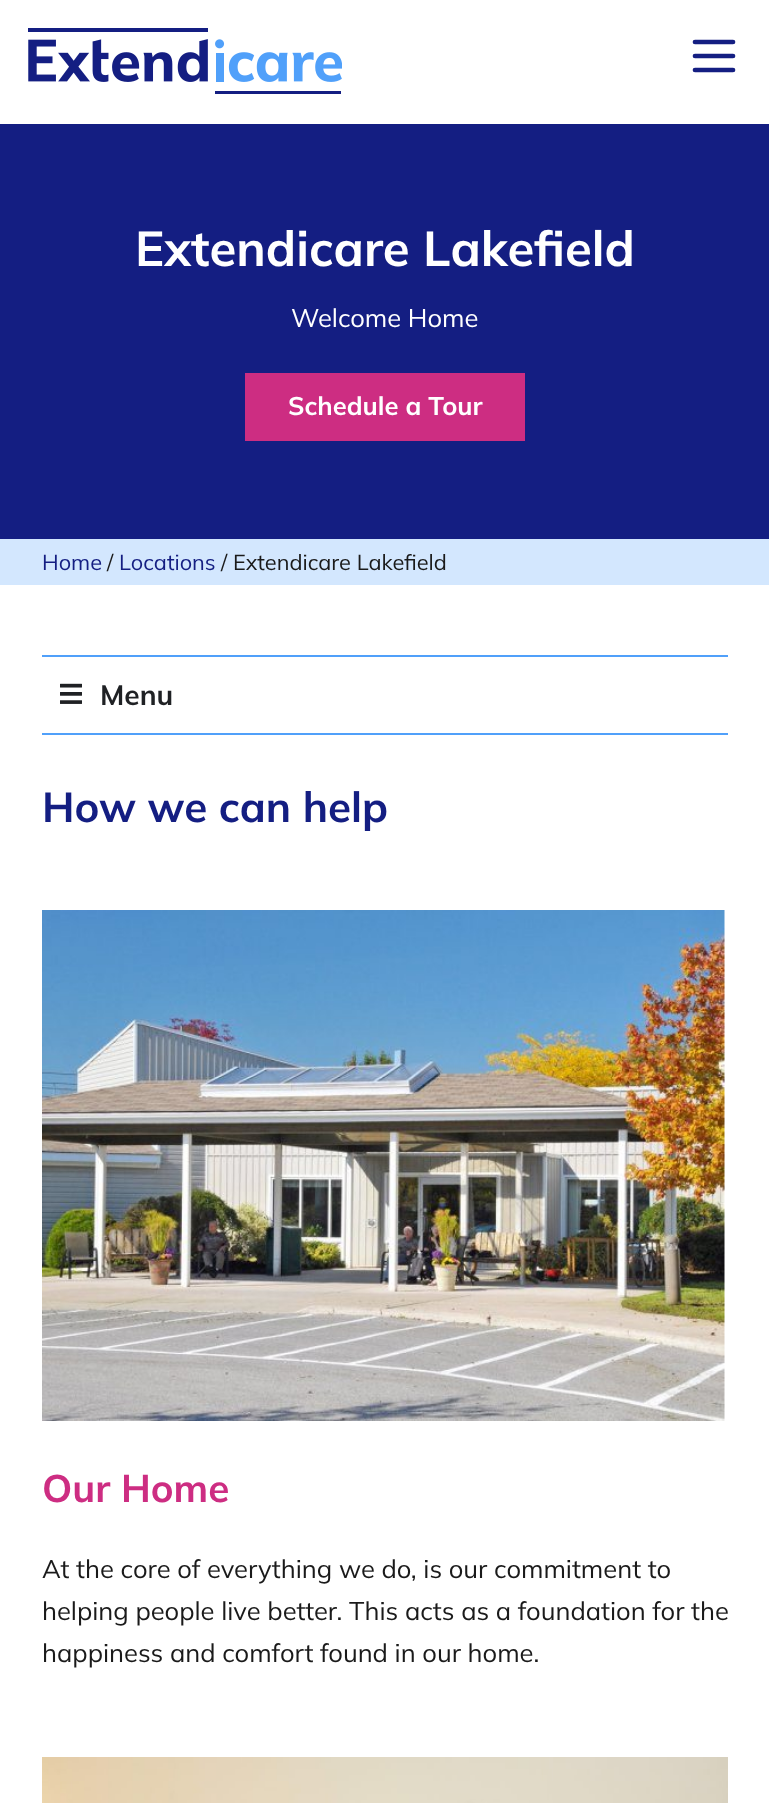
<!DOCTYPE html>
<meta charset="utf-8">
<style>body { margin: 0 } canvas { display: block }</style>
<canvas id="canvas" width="769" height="1803"></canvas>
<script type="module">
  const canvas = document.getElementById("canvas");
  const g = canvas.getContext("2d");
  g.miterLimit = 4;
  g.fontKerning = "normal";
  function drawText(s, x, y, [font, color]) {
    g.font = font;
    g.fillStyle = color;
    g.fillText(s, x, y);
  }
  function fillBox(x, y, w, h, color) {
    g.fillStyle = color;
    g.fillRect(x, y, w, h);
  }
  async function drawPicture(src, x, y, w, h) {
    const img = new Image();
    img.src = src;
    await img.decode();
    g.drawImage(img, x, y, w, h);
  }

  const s1 = ["bold 49px Mulish", "#FFFFFF"];
  const s2 = ["25.55px Mulish", "#FFFFFF"];
  const s3 = ["bold 25.55px Mulish", "#FFFFFF"];
  const s4 = ["21.75px Mulish", "#141E82"];
  const s5 = ["21.75px Mulish", "#1A1A1A"];
  const s6 = ["bold 28px Mulish", "#1F2124"];
  const s7 = ["bold 42px Mulish", "#141E82"];
  const s8 = ["bold 38.5px Mulish", "#CD2D82"];
  const s9 = ["25.55px Mulish", "#1A1A1A"];

  fillBox(0, 0, 769, 1803, "#FFFFFF");
  await drawPicture("pic1.png", 28, 28, 314, 66);
  g.beginPath();
  g.moveTo(695, 56);
  g.lineTo(733, 56);
  g.moveTo(695, 42);
  g.lineTo(733, 42);
  g.moveTo(695, 70);
  g.lineTo(733, 70);
  g.strokeStyle = "#141E82";
  g.lineWidth = 4.7;
  g.lineCap = "round";
  g.lineJoin = "round";
  g.stroke();
  fillBox(0, 124, 769, 415, "#141E82");
  drawText("Extendicare Lakefield", 135, 266, s1);
  drawText("Welcome Home", 291, 327, s2);
  fillBox(245, 373, 280, 68, "#CD2D82");
  drawText("Schedule a Tour", 288, 415, s3);
  fillBox(0, 539, 769, 46, "#D3E7FE");
  drawText("Home", 42, 570, s4);
  drawText("/", 107, 570, s5);
  drawText("Locations", 119, 570, s4);
  drawText("/ Extendicare Lakefield", 221, 570, s5);
  fillBox(42, 655, 686, 2, "#50A0FA");
  fillBox(42, 733, 686, 2, "#50A0FA");
  await drawPicture("pic2.png", 60, 683, 22, 21);
  drawText("Menu", 100, 705, s6);
  drawText("How we can help", 42, 822, s7);
  await drawPicture("pic3.png", 42, 910, 683, 511);
  drawText("Our Home", 42, 1502, s8);
  drawText("At the core of everything we do, is our commitment to", 42, 1578, s9);
  drawText("helping people live better. This acts as a foundation for the", 42, 1620, s9);
  drawText("happiness and comfort found in our home.", 42, 1662, s9);
  await drawPicture("pic4.png", 42, 1757, 686, 46);
</script>
